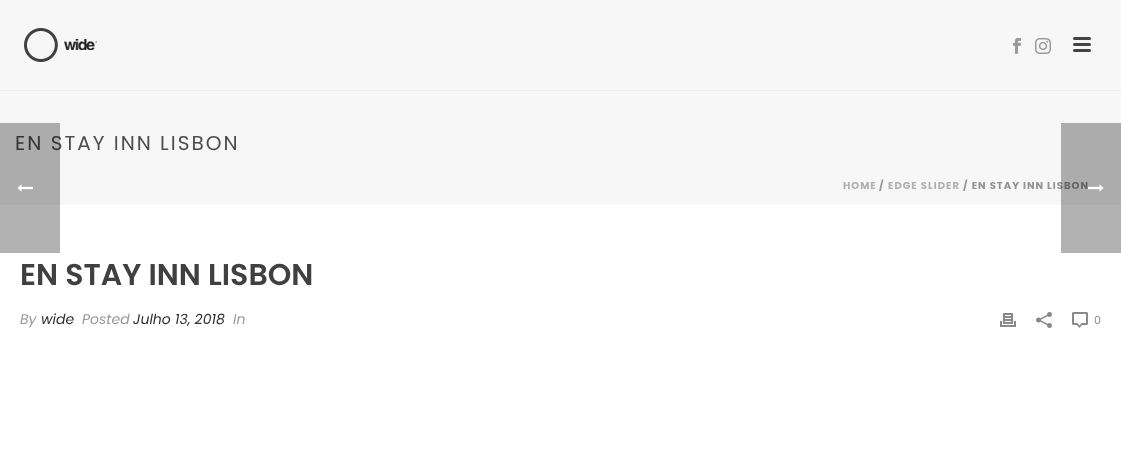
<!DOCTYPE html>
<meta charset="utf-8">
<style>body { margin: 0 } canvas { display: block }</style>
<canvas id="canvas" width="1121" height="476"></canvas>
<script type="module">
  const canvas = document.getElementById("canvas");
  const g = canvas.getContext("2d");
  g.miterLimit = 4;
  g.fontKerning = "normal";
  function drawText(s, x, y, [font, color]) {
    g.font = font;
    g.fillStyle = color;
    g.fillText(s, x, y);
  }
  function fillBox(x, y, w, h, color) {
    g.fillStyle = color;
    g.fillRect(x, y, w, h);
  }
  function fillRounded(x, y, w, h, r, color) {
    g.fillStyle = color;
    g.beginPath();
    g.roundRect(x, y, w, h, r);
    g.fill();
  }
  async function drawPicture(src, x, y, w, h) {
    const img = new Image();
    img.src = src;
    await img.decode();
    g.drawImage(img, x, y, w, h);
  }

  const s1 = ["20px Poppins", "#4D4D4D"];
  const s2 = ["bold 10px Poppins", "#919191"];
  const s3 = ["bold 10px Poppins", "#AFAFAF"];
  const s4 = ["600 30px Poppins", "#404040"];
  const s5 = ["italic 14px Poppins", "#999999"];
  const s6 = ["italic 14px Poppins", "#2E2E2E"];
  const s7 = ["11px Poppins", "#898989"];

  fillBox(0, 0, 1121, 476, "#FFFFFF");
  fillBox(0, 0, 1121, 204, "#F7F7F7");
  fillBox(0, 204, 1121, 1, "#F9F9F9");
  g.letterSpacing = "2px";
  drawText("EN STAY INN LISBON", 15, 150, s1);
  fillBox(0, 123, 60, 130, "rgba(0, 0, 0, 0.3)");
  await drawPicture("pic1.png", 17, 184, 16, 8);
  g.letterSpacing = "1px";
  drawText("/ EN STAY INN LISBON", 963, 189, s2);
  fillBox(1061, 123, 60, 130, "rgba(0, 0, 0, 0.3)");
  await drawPicture("pic2.png", 1088, 184, 16, 8);
  fillBox(0, 90, 1121, 1, "#EDEDED");
  await drawPicture("pic3.png", 24, 28, 73, 34);
  fillRounded(1073, 37, 18, 3, 1.5, "#444444");
  fillRounded(1073, 43, 18, 3, 1.5, "#444444");
  fillRounded(1073, 49, 18, 3, 1.5, "#444444");
  await drawPicture("pic4.png", 1013, 38, 8, 16);
  await drawPicture("pic5.png", 1035, 38, 16, 16);
  drawText("HOME", 843, 189, s3);
  drawText("/", 879, 189, s2);
  drawText("EDGE SLIDER", 888, 189, s3);
  g.letterSpacing = "0px";
  drawText("EN STAY INN LISBON", 20, 285, s4);
  drawText("By", 20, 324, s5);
  drawText("wide", 41, 324, s6);
  drawText("Posted", 82, 324, s5);
  drawText("Julho 13, 2018", 133, 324, s6);
  drawText("In", 233, 324, s5);
  await drawPicture("pic6.png", 1000, 313, 16, 14);
  await drawPicture("pic7.png", 1036, 312, 16, 16);
  await drawPicture("pic8.png", 1072, 312, 16, 16);
  drawText("0", 1094, 324, s7);
</script>
